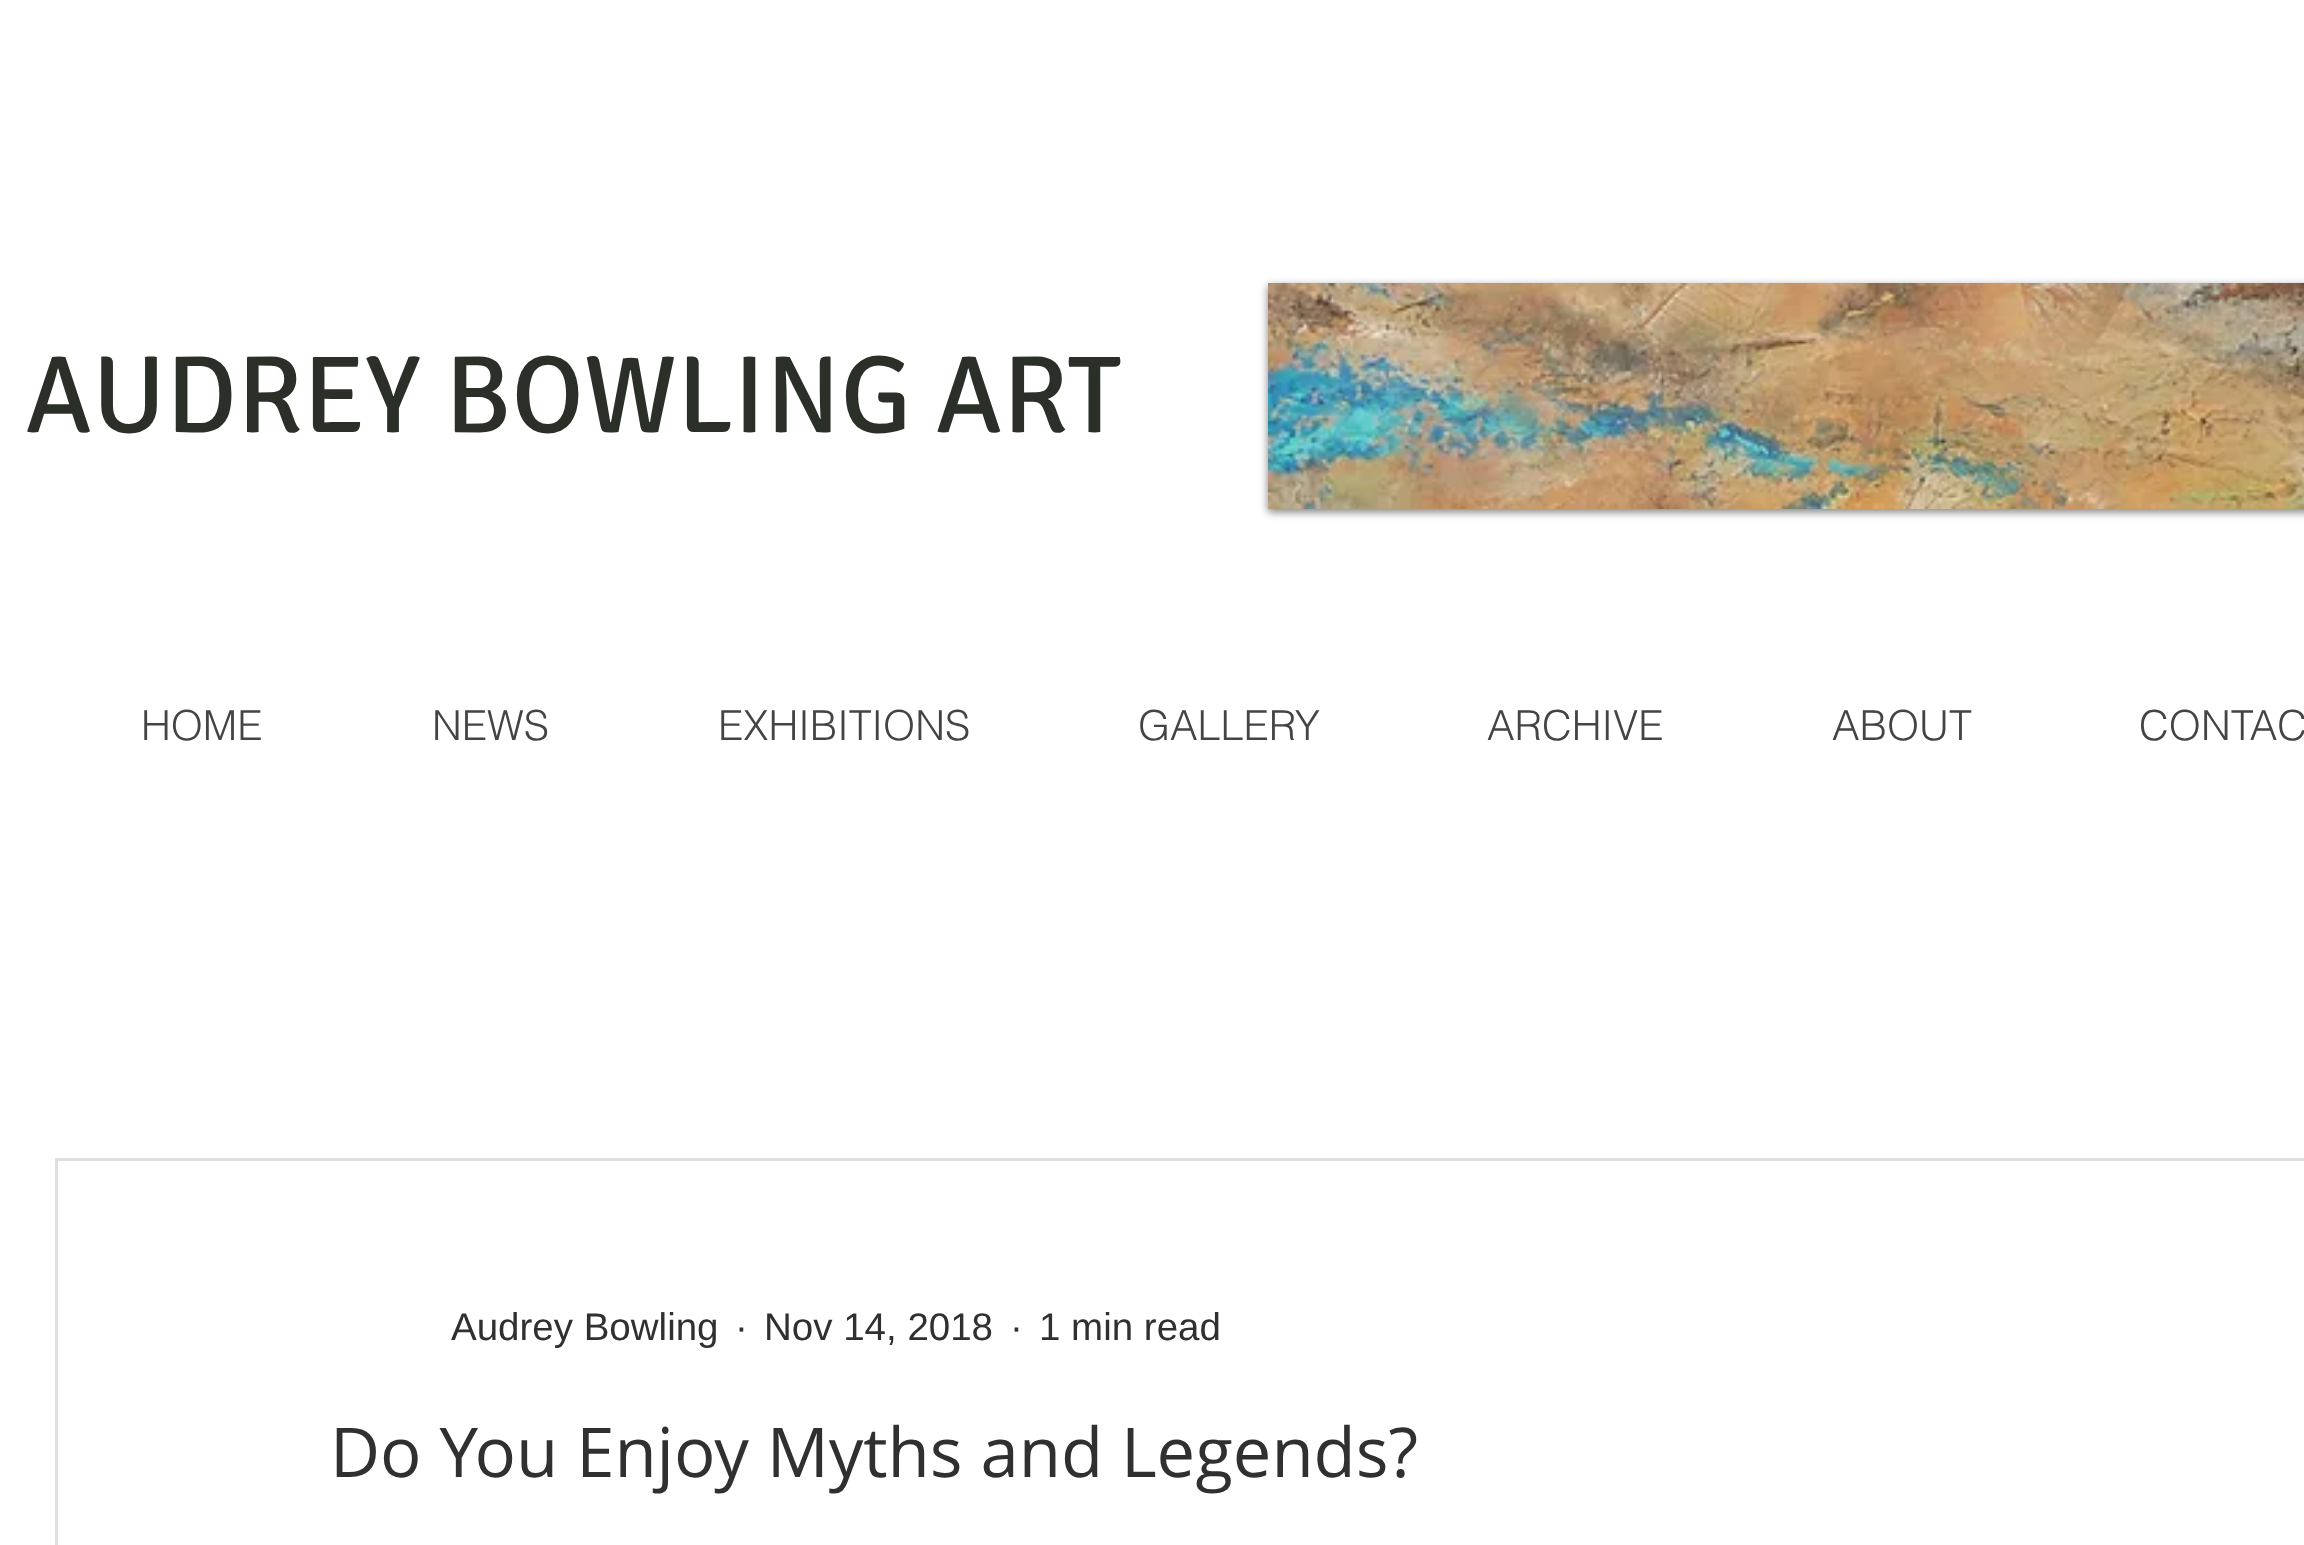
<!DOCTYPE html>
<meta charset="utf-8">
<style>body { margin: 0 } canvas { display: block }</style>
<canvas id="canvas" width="2304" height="1545"></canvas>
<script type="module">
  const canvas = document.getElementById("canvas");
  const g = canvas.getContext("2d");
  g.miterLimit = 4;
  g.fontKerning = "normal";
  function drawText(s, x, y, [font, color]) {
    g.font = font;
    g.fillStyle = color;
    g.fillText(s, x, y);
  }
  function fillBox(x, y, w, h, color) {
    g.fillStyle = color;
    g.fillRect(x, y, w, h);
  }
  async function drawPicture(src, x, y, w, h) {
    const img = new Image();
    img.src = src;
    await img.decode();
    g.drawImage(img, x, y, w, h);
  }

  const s1 = ["110px Signika", "#2A3027"];
  const s2 = ["300 41.25px helvetica", "#444444"];
  const s3 = ["38.5px Liberation Sans", "#303030"];
  const s4 = ["68.75px Open Sans", "#303030"];

  fillBox(0, 0, 2304, 1545, "#FFFFFF");
  drawText("AUDREY BOWLING ART", 25, 432, s1);
  g.fillStyle = "rgba(0, 0, 0, 0.5)";
  g.filter = "blur(4px)";
  g.beginPath();
  g.rect(1268, 286, 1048, 226);
  g.fill();
  g.filter = "none";
  await drawPicture("pic1.png", 1268, 283, 1036, 226);
  drawText("HOME", 141, 740, s2);
  drawText("NEWS", 432, 740, s2);
  drawText("EXHIBITIONS", 718, 740, s2);
  drawText("GALLERY", 1138, 740, s2);
  drawText("ARCHIVE", 1487, 740, s2);
  drawText("ABOUT", 1832, 740, s2);
  drawText("CONTAC", 2139, 740, s2);
  g.strokeStyle = "#DFDFDF";
  g.lineWidth = 3;
  g.strokeRect(56.5, 1159.5, 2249, 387);
  drawText("Audrey Bowling", 451, 1340, s3);
  drawText("·", 735, 1340, s3);
  drawText("Nov 14, 2018", 764, 1340, s3);
  drawText("·", 1010, 1340, s3);
  drawText("1 min read", 1039, 1340, s3);
  drawText("Do You Enjoy Myths and Legends?", 330, 1477, s4);
</script>
